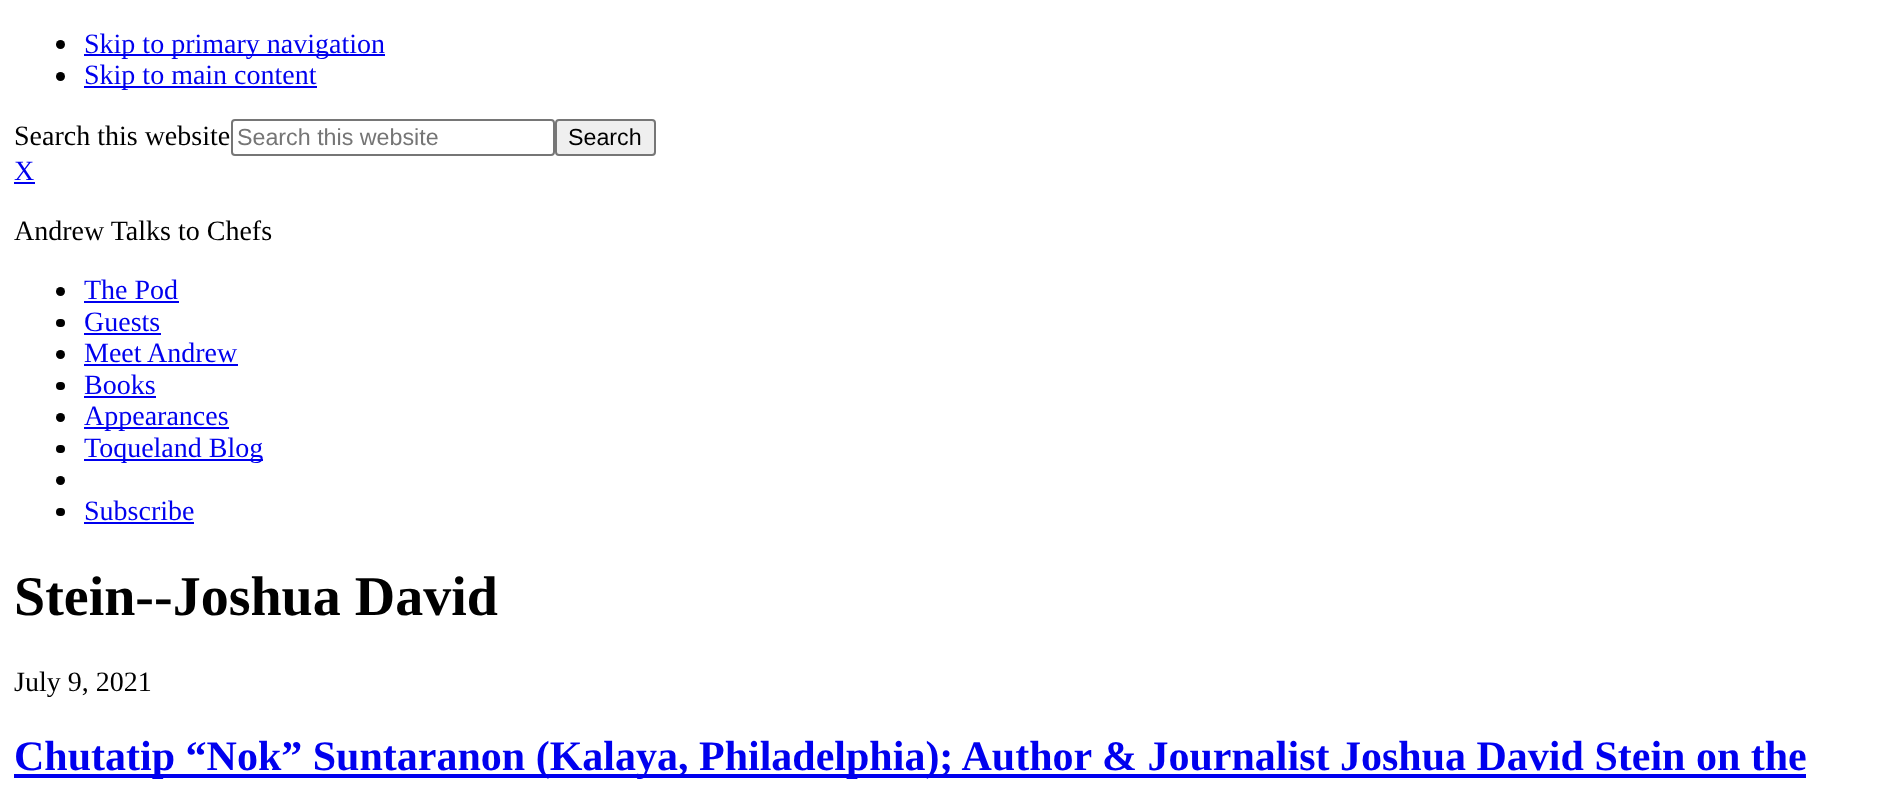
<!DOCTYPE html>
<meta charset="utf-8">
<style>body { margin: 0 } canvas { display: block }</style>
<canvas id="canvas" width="1896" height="809"></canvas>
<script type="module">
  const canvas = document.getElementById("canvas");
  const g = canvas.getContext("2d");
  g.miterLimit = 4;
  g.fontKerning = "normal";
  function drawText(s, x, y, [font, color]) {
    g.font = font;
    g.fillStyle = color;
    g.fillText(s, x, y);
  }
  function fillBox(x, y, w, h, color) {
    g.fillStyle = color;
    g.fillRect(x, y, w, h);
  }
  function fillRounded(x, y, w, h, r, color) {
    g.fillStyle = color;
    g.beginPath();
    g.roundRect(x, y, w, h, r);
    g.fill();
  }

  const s1 = ["28px Liberation Serif", "#0000EE"];
  const s2 = ["28px Liberation Serif", "#000000"];
  const s3 = ["23.25px Liberation Sans", "#757575"];
  const s4 = ["23.25px Liberation Sans", "#000000"];
  const s5 = ["bold 56px Liberation Serif", "#000000"];
  const s6 = ["bold 42px Liberation Serif", "#0000EE"];

  fillBox(0, 0, 1896, 809, "#FFFFFF");
  g.fillStyle = "#000000";
  g.beginPath();
  g.arc(60.5, 44.5, 4.5, 0, Math.PI * 2);
  g.fill();
  fillBox(84, 54, 301, 2, "#0000EE");
  drawText("Skip to primary navigation", 84, 53, s1);
  g.fillStyle = "#000000";
  g.beginPath();
  g.arc(60.5, 76.5, 4.5, 0, Math.PI * 2);
  g.fill();
  fillBox(84, 86, 233, 2, "#0000EE");
  drawText("Skip to main content", 84, 84, s1);
  drawText("Search this website", 14, 145, s2);
  g.beginPath();
  g.roundRect(232, 120, 322, 35, 3);
  g.strokeStyle = "#767676";
  g.lineWidth = 2;
  g.stroke();
  drawText("Search this website", 237, 145, s3);
  g.fillStyle = "#EFEFEF";
  g.beginPath();
  g.roundRect(556, 120, 99, 35, 3);
  g.fill();
  g.stroke();
  drawText("Search", 568, 145, s4);
  drawText("X", 14, 180, s1);
  fillBox(14, 182, 21, 2, "#0000EE");
  drawText("Andrew Talks to Chefs", 14, 240, s2);
  g.beginPath();
  g.arc(60.5, 291.5, 4.5, 0, Math.PI * 2);
  g.fill();
  drawText("The Pod", 84, 299, s1);
  fillBox(84, 301, 95, 2, "#0000EE");
  fillRounded(56, 319, 9, 8, 4, "#000000");
  drawText("Guests", 84, 331, s1);
  fillBox(84, 333, 77, 2, "#0000EE");
  g.fillStyle = "#000000";
  g.beginPath();
  g.arc(60.5, 354.5, 4.5, 0, Math.PI * 2);
  g.fill();
  drawText("Meet Andrew", 84, 362, s1);
  fillBox(84, 364, 154, 2, "#0000EE");
  fillRounded(56, 382, 9, 8, 4, "#000000");
  drawText("Books", 84, 394, s1);
  fillBox(84, 396, 72, 2, "#0000EE");
  g.fillStyle = "#000000";
  g.beginPath();
  g.arc(60.5, 417.5, 4.5, 0, Math.PI * 2);
  g.fill();
  fillBox(84, 427, 145, 2, "#0000EE");
  drawText("Appearances", 84, 425, s1);
  fillRounded(56, 445, 9, 8, 4, "#000000");
  fillBox(84, 459, 179, 2, "#0000EE");
  drawText("Toqueland Blog", 84, 457, s1);
  g.fillStyle = "#000000";
  g.beginPath();
  g.arc(60.5, 480.5, 4.5, 0, Math.PI * 2);
  g.fill();
  fillRounded(56, 508, 9, 8, 4, "#000000");
  drawText("Subscribe", 84, 520, s1);
  fillBox(84, 522, 110, 2, "#0000EE");
  drawText("Stein--Joshua David", 14, 615, s5);
  drawText("July 9, 2021", 14, 691, s2);
  fillBox(14, 774, 1792, 4, "#0000EE");
  drawText("Chutatip “Nok” Suntaranon (Kalaya, Philadelphia); Author & Journalist Joshua David Stein on the", 14, 770, s6);
</script>
